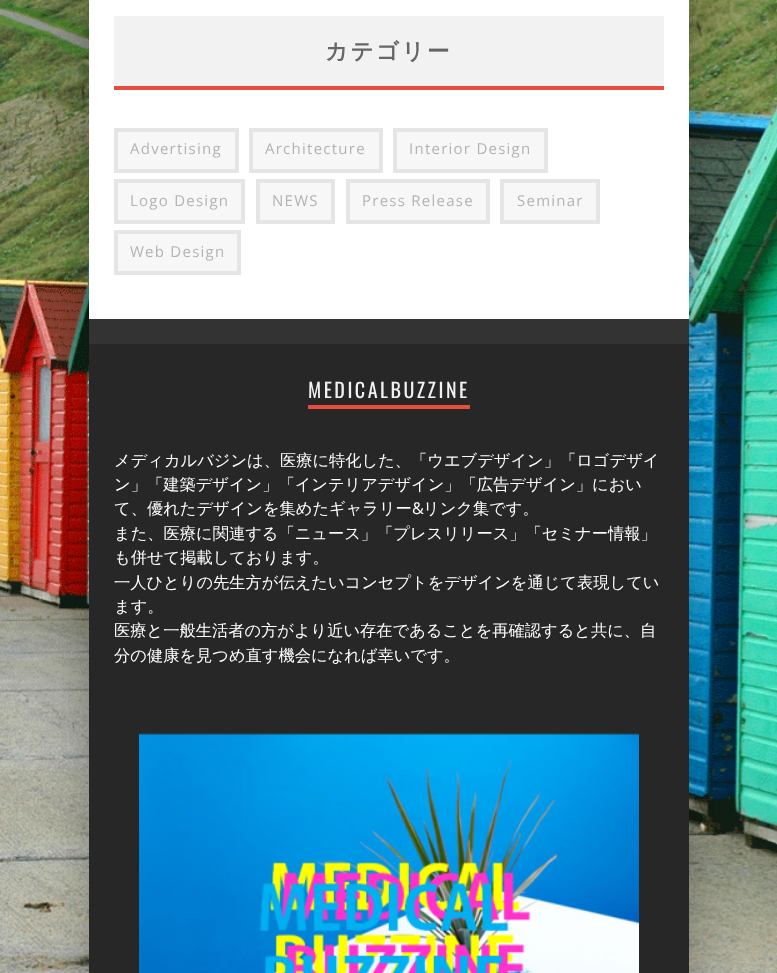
<!DOCTYPE html>
<meta charset="utf-8">
<style>body { margin: 0 } canvas { display: block }</style>
<canvas id="canvas" width="777" height="973"></canvas>
<script type="module">
  const canvas = document.getElementById("canvas");
  const g = canvas.getContext("2d");
  g.miterLimit = 4;
  g.fontKerning = "normal";
  function drawText(s, x, y, [font, color]) {
    g.font = font;
    g.fillStyle = color;
    g.fillText(s, x, y);
  }
  function fillBox(x, y, w, h, color) {
    g.fillStyle = color;
    g.fillRect(x, y, w, h);
  }
  async function drawPicture(src, x, y, w, h) {
    const img = new Image();
    img.src = src;
    await img.decode();
    g.drawImage(img, x, y, w, h);
  }

  const s1 = ["bold 22.5px WenQuanYi Zen Hei", "#666666"];
  const s2 = ["15px Open Sans", "#B3B3B3"];
  const s3 = ["20px Oswald", "#F2F2F2"];
  const s4 = ["500 16.25px WenQuanYi Zen Hei", "#FFFFFF"];
  const s5 = ["16.25px Open Sans", "#FFFFFF"];

  fillBox(0, 0, 777, 973, "#FFFFFF");
  await drawPicture("pic1.png", 0, 0, 777, 973);
  g.fillStyle = "rgba(0, 0, 0, 0.15)";
  g.filter = "blur(19px)";
  g.beginPath();
  g.rect(76, -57, 600, 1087);
  g.fill();
  g.filter = "none";
  g.filter = "blur(19px)";
  g.beginPath();
  g.rect(101, -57, 600, 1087);
  g.fill();
  g.filter = "none";
  fillBox(89, 0, 600, 319, "#FFFFFF");
  fillBox(114, 16, 550, 70, "#F2F2F2");
  fillBox(114, 86, 550, 4, "#E74C3C");
  g.letterSpacing = "2.5px";
  drawText("カテゴリー", 325, 59, s1);
  g.fillStyle = "#F7F7F7";
  g.beginPath();
  g.rect(116, 130, 121, 41);
  g.fill();
  g.strokeStyle = "#E5E5E5";
  g.lineWidth = 4;
  g.stroke();
  g.letterSpacing = "1.25px";
  drawText("Advertising", 130, 154, s2);
  g.fillStyle = "#F7F7F7";
  g.beginPath();
  g.rect(251, 130, 130, 41);
  g.fill();
  g.stroke();
  drawText("Architecture", 265, 154, s2);
  g.fillStyle = "#F7F7F7";
  g.beginPath();
  g.rect(395, 130, 151, 41);
  g.fill();
  g.stroke();
  drawText("Interior Design", 409, 154, s2);
  g.fillStyle = "#F7F7F7";
  g.beginPath();
  g.rect(116, 181, 127, 41);
  g.fill();
  g.stroke();
  drawText("Logo Design", 130, 206, s2);
  g.fillStyle = "#F7F7F7";
  g.beginPath();
  g.rect(258, 181, 75, 41);
  g.fill();
  g.stroke();
  drawText("NEWS", 272, 206, s2);
  g.fillStyle = "#F7F7F7";
  g.beginPath();
  g.rect(348, 181, 140, 41);
  g.fill();
  g.stroke();
  drawText("Press Release", 362, 206, s2);
  g.fillStyle = "#F7F7F7";
  g.beginPath();
  g.rect(502, 181, 96, 41);
  g.fill();
  g.stroke();
  drawText("Seminar", 517, 206, s2);
  g.fillStyle = "#F7F7F7";
  g.beginPath();
  g.rect(116, 232, 123, 41);
  g.fill();
  g.stroke();
  drawText("Web Design", 130, 257, s2);
  fillBox(89, 344, 600, 629, "#272727");
  fillBox(89, 319, 600, 25, "#333333");
  g.letterSpacing = "2.5px";
  drawText("MEDICALBUZZINE", 308, 398, s3);
  fillBox(308, 405, 162, 4, "#E74C3C");
  g.letterSpacing = "0px";
  drawText("メディカルバジンは、医療に特化した、「ウエブデザイン」「ロゴデザイ", 114, 466, s4);
  drawText("ン」「建築デザイン」「インテリアデザイン」「広告デザイン」におい", 114, 490, s4);
  drawText("て、優れたデザインを集めたギャラリー", 114, 514, s4);
  drawText("&", 412, 514, s5);
  drawText("リンク集です。", 423, 514, s4);
  drawText("また、医療に関連する「ニュース」「プレスリリース」「セミナー情報」", 114, 539, s4);
  drawText("も併せて掲載しております。", 114, 563, s4);
  drawText("一人ひとりの先生方が伝えたいコンセプトをデザインを通じて表現してい", 114, 588, s4);
  drawText("ます。", 114, 612, s4);
  drawText("医療と一般生活者の方がより近い存在であることを再確認すると共に、自", 114, 636, s4);
  drawText("分の健康を見つめ直す機会になれば幸いです。", 114, 661, s4);
  await drawPicture("pic2.png", 139, 733, 500, 240);
</script>
